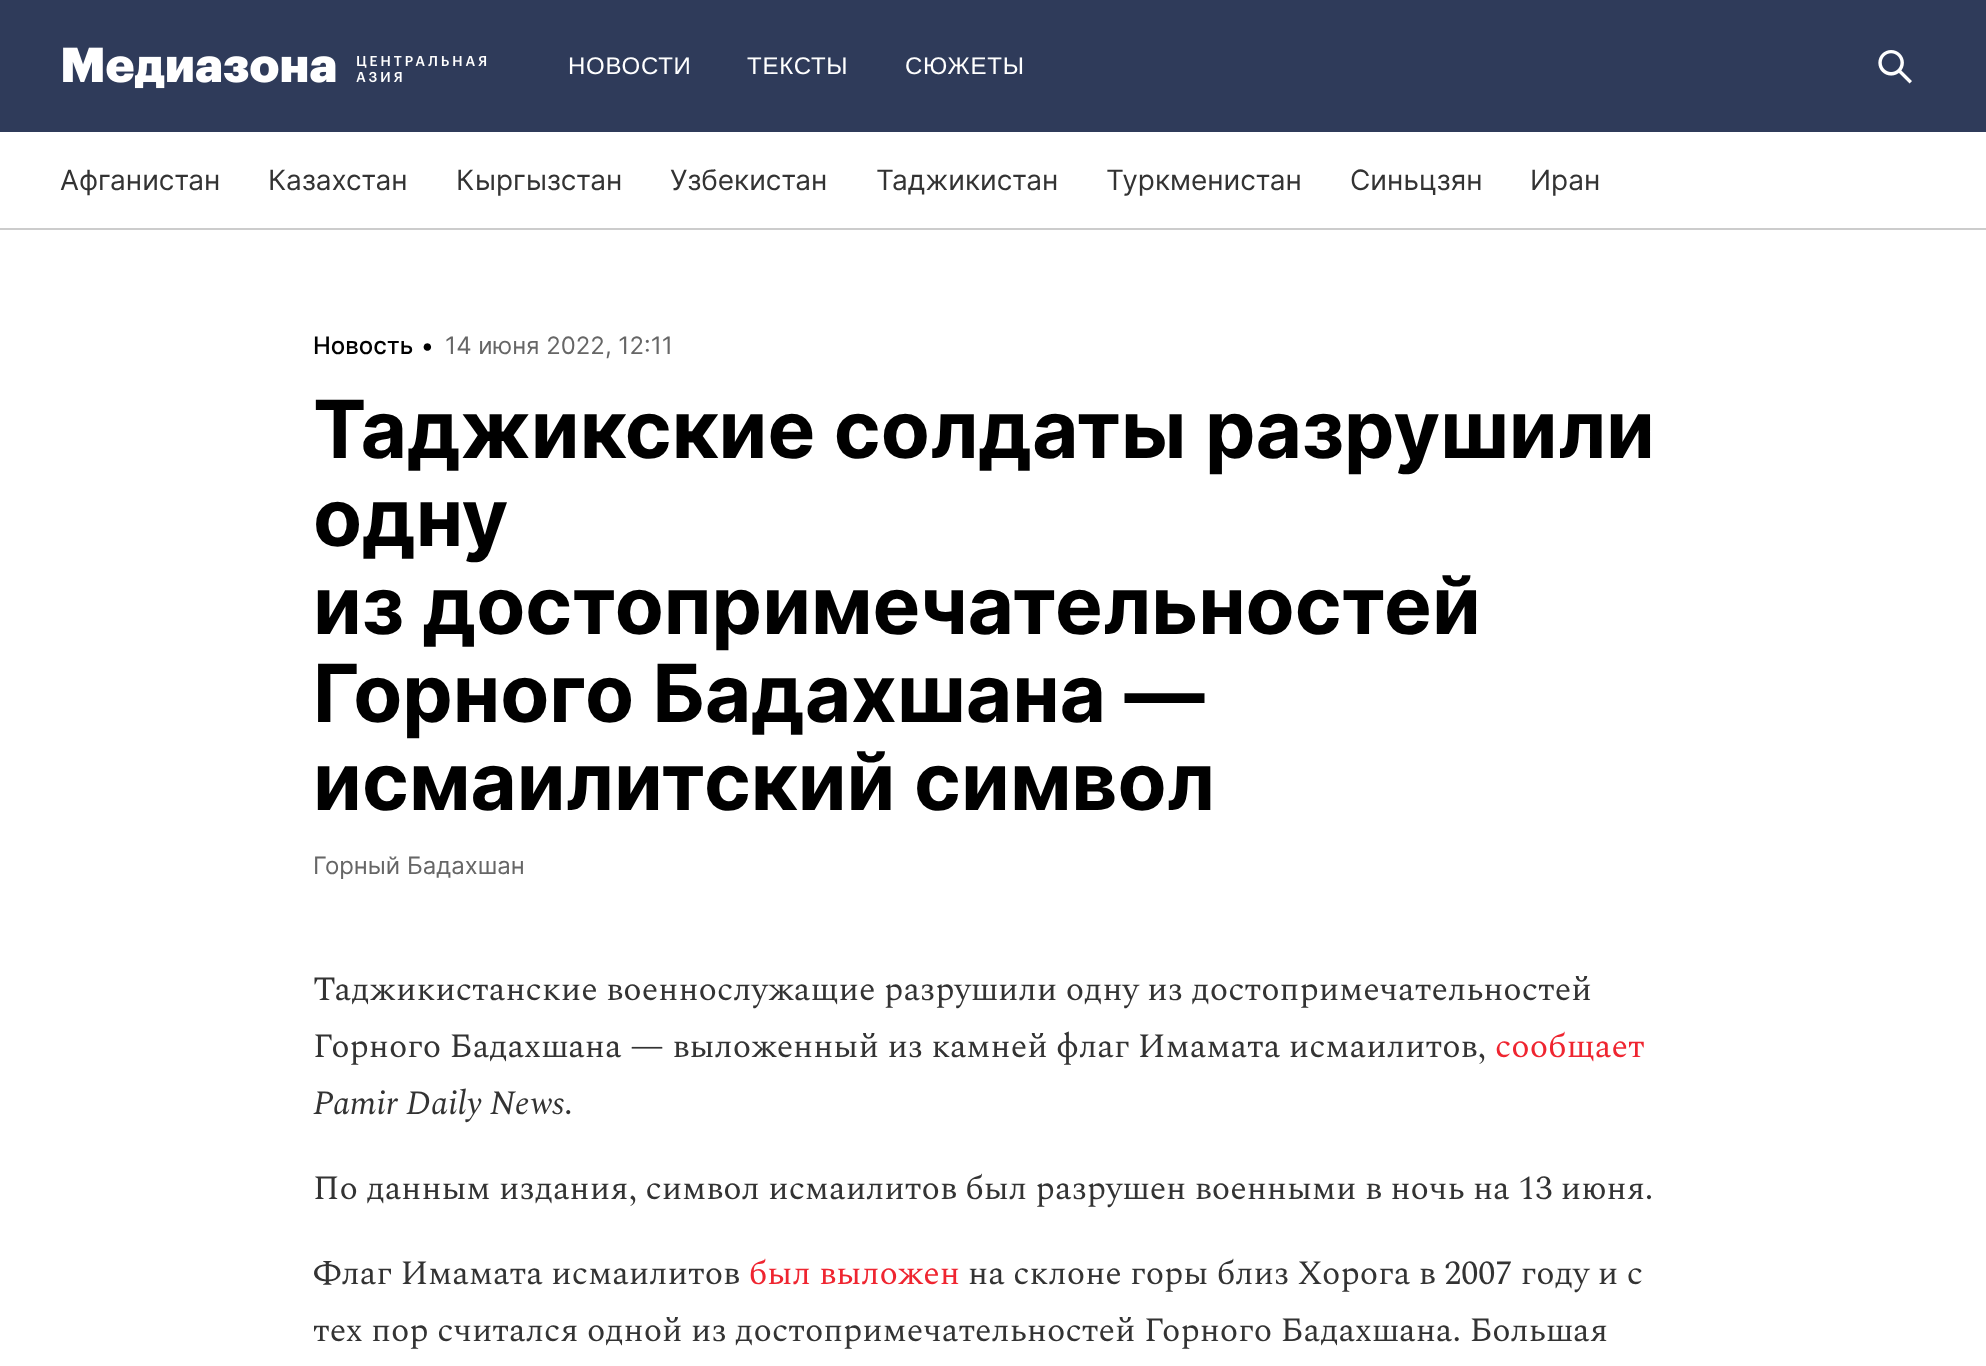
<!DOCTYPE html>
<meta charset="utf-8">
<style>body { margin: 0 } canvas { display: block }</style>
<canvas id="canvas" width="1986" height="1366"></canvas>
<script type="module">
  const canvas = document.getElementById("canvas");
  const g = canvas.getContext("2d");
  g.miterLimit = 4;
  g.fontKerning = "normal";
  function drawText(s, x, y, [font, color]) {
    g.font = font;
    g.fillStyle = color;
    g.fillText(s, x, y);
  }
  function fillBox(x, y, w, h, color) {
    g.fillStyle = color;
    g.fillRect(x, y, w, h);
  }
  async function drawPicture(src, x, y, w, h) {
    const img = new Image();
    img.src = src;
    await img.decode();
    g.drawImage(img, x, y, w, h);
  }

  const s1 = ["24px Liberation Sans", "#FFFFFF"];
  const s2 = ["28px Inter", "#333333"];
  const s3 = ["500 24px Inter", "#000000"];
  const s4 = ["24px Inter", "#666666"];
  const s5 = ["bold 80px Inter", "#000000"];
  const s6 = ["34px Spectral", "#333333"];
  const s7 = ["34px Spectral", "#EF2530"];
  const s8 = ["italic 34px Spectral", "#333333"];

  fillBox(0, 0, 1986, 1366, "#FFFFFF");
  fillBox(0, 0, 1986, 132, "#2F3B5A");
  await drawPicture("pic1.png", 63, 47, 424, 42);
  g.letterSpacing = "0.75px";
  drawText("НОВОСТИ", 568, 74, s1);
  drawText("ТЕКСТЫ", 747, 74, s1);
  drawText("СЮЖЕТЫ", 905, 74, s1);
  await drawPicture("pic2.png", 1878, 50, 34, 34);
  fillBox(0, 228, 1986, 2, "#CCCCCC");
  g.letterSpacing = "0px";
  drawText("Афганистан", 60, 190, s2);
  drawText("Казахстан", 268, 190, s2);
  drawText("Кыргызстан", 456, 190, s2);
  drawText("Узбекистан", 670, 190, s2);
  drawText("Таджикистан", 876, 190, s2);
  drawText("Туркменистан", 1106, 190, s2);
  drawText("Синьцзян", 1350, 190, s2);
  drawText("Иран", 1530, 190, s2);
  drawText("Новость", 313, 354, s3);
  drawText("•", 421, 354, s3);
  drawText("14 июня 2022, 12:11", 445, 354, s4);
  drawText("Таджикские солдаты разрушили", 313, 458, s5);
  drawText("одну", 313, 546, s5);
  drawText("из достопримечательностей", 313, 634, s5);
  drawText("Горного Бадахшана —", 313, 722, s5);
  drawText("исмаилитский символ", 313, 810, s5);
  drawText("Горный Бадахшан", 313, 874, s4);
  drawText("Таджикистанские военнослужащие разрушили одну из достопримечательностей", 313, 1000, s6);
  drawText("Горного Бадахшана — выложенный из камней флаг Имамата исмаилитов,", 313, 1057, s6);
  drawText("сообщает", 1495, 1057, s7);
  drawText("Pamir Daily News", 313, 1114, s8);
  drawText(".", 564, 1114, s6);
  drawText("По данным издания, символ исмаилитов был разрушен военными в ночь на 13 июня.", 313, 1199, s6);
  drawText("Флаг Имамата исмаилитов", 313, 1284, s6);
  drawText("был выложен", 749, 1284, s7);
  drawText("на склоне горы близ Хорога в 2007 году и с", 968, 1284, s6);
  drawText("тех пор считался одной из достопримечательностей Горного Бадахшана. Большая", 313, 1341, s6);
</script>
